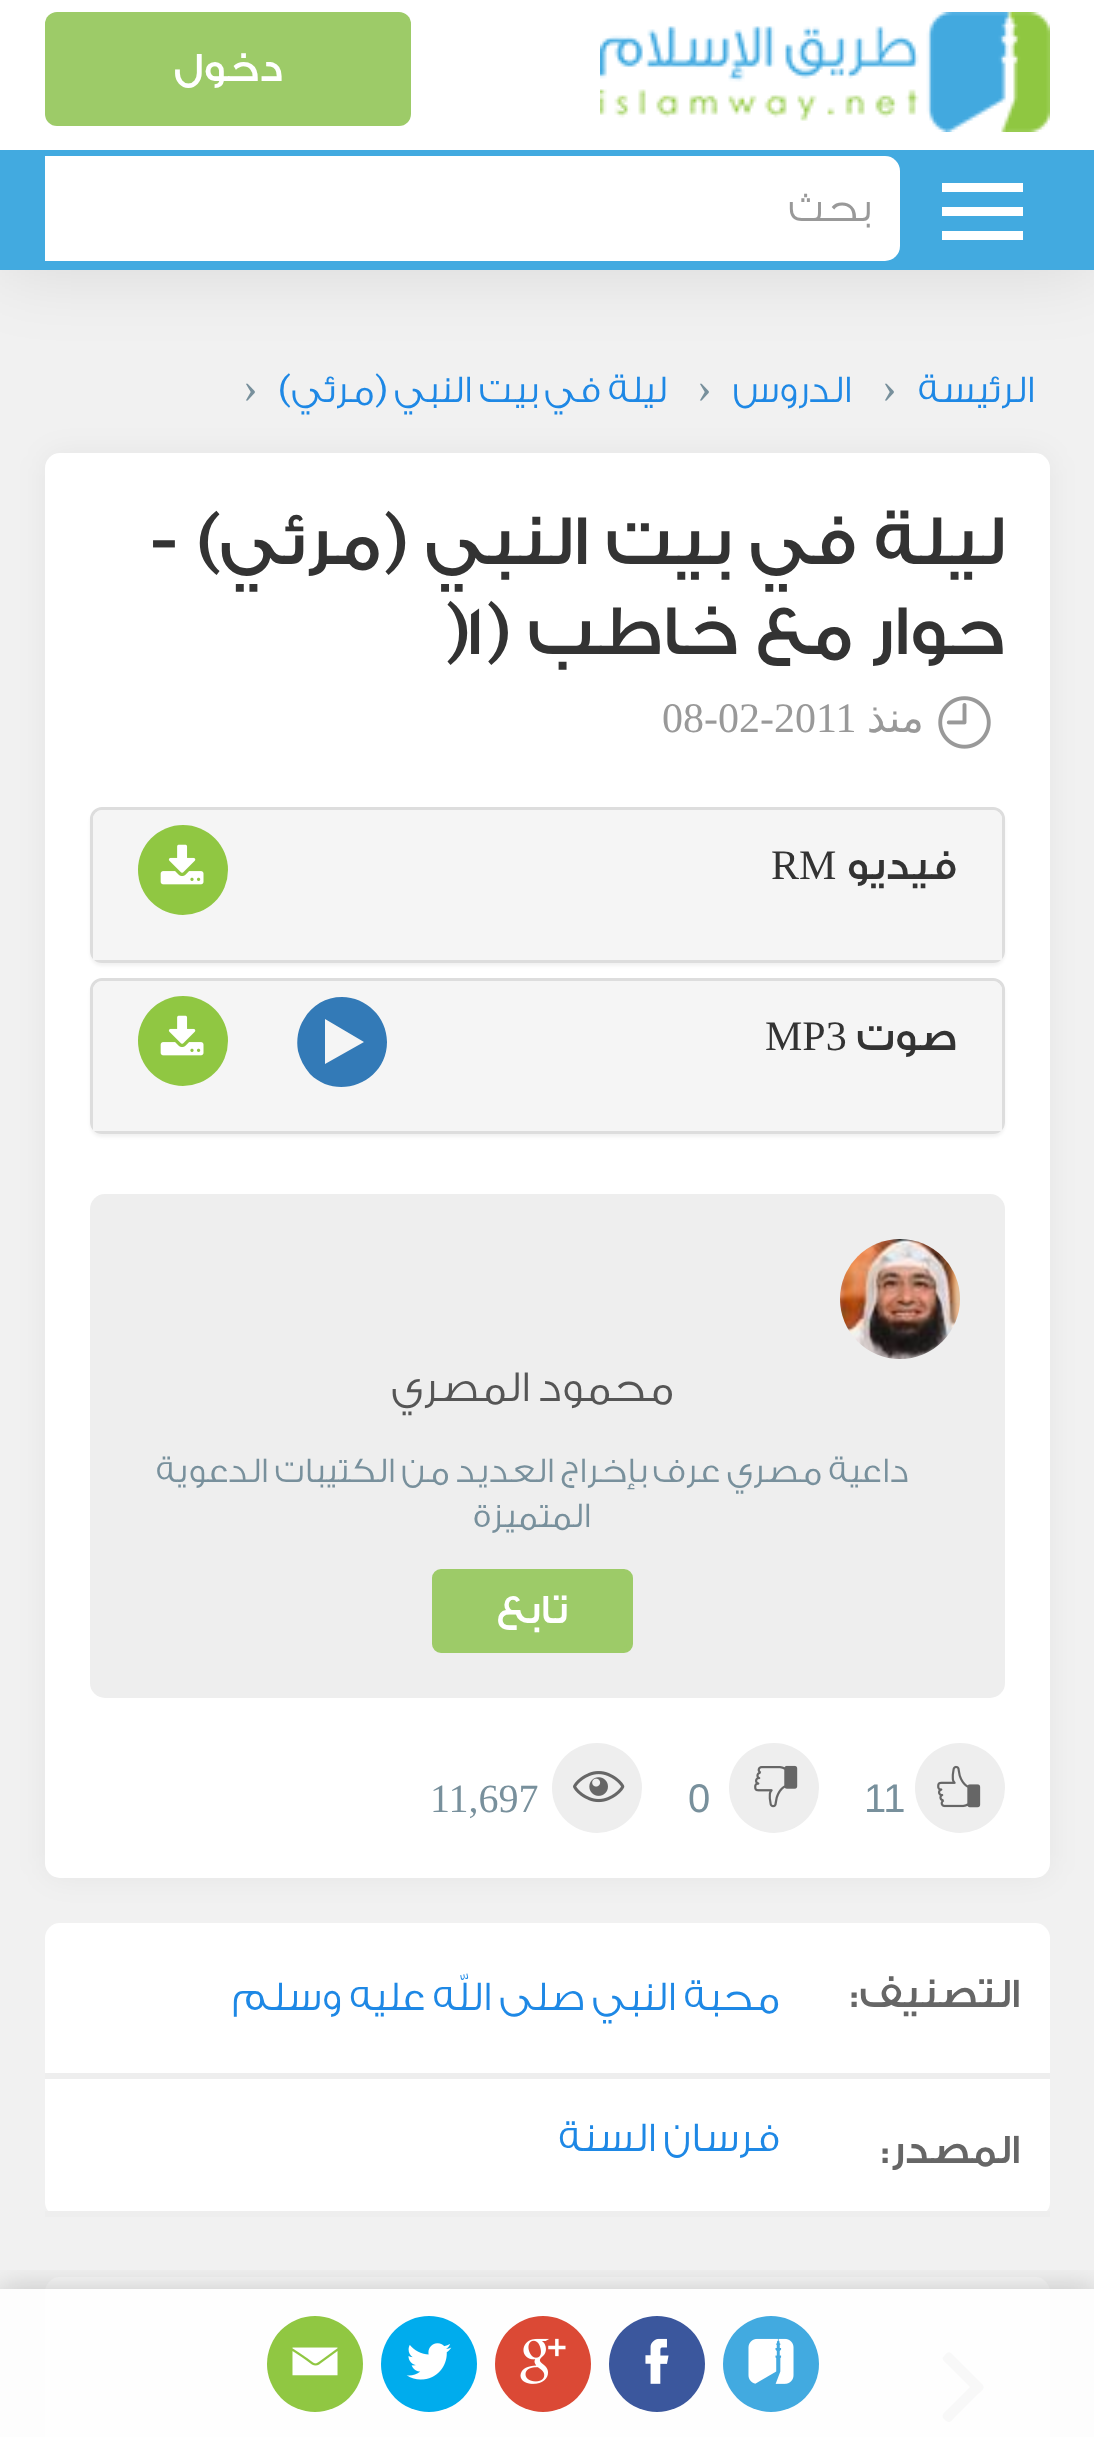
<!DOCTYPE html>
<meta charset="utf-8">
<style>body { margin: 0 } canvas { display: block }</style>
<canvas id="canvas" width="1094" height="2437"></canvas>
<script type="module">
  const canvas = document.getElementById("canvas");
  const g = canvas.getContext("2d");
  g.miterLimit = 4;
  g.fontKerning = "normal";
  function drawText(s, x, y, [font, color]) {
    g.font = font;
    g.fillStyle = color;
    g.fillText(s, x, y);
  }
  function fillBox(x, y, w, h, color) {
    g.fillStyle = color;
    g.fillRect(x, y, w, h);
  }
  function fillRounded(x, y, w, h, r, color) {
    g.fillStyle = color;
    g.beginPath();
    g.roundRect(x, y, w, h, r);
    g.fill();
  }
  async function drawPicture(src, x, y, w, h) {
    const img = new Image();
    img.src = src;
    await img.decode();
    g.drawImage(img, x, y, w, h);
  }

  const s1 = ["500 42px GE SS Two", "#FFFFFF"];
  const s2 = ["300 42px GE SS Two", "#999999"];
  const s3 = ["300 39px GE SS Two", "#1E88E5"];
  const s4 = ["44px Liberation Serif", "#78909C"];
  const s5 = ["500 72px GE SS Two", "#333333"];
  const s6 = ["42px DejaVu Sans", "#999999"];
  const s7 = ["42px Liberation Serif", "#999999"];
  const s8 = ["500 42px GE SS Two", "#333333"];
  const s9 = ["42px Liberation Serif", "#333333"];
  const s10 = ["300 44px GE SS Two", "#555555"];
  const s11 = ["300 36px GE SS Two", "#78909C"];
  const s12 = ["40px Liberation Sans", "#78909C"];
  const s13 = ["40px Liberation Serif", "#78909C"];
  const s14 = ["500 42px GE SS Two", "#666666"];
  const s15 = ["300 42px GE SS Two", "#1E88E5"];

  fillBox(0, 0, 1094, 2437, "#F1F1F1");
  g.fillStyle = "rgba(0, 0, 0, 0.1)";
  g.filter = "blur(37.5px)";
  g.beginPath();
  g.rect(0, 0, 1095, 270);
  g.fill();
  g.filter = "none";
  fillBox(0, 150, 1094, 120, "#42AAE0");
  fillBox(0, 0, 1094, 150, "#FFFFFF");
  fillRounded(45, 12, 366, 114, 12, "#9DCB68");
  g.direction = "rtl";
  drawText("دخول", 283, 81, s1);
  await drawPicture("pic1.png", 600, 12, 450, 120);
  fillBox(942, 183, 81, 9, "#FFFFFF");
  fillBox(942, 207, 81, 9, "#FFFFFF");
  fillBox(942, 231, 81, 9, "#FFFFFF");
  g.beginPath();
  g.roundRect(45, 156, 855, 105, [0, 15, 15, 0]);
  g.fill();
  drawText("بحث", 870, 221, s2);
  drawText("الرئيسة", 1035, 402, s3);
  g.direction = "ltr";
  drawText("›", 882, 402, s4);
  g.direction = "rtl";
  drawText("الدروس", 852, 402, s3);
  g.direction = "ltr";
  drawText("›", 697, 402, s4);
  g.direction = "rtl";
  drawText("ليلة في بيت النبي (مرئي)", 667, 402, s3);
  g.direction = "ltr";
  drawText("›", 243, 402, s4);
  g.fillStyle = "rgba(0, 0, 0, 0.05)";
  g.filter = "blur(15px)";
  g.beginPath();
  g.roundRect(45, 453, 1005, 1425, 15);
  g.fill();
  g.filter = "none";
  fillRounded(45, 453, 1005, 1425, 15, "#FFFFFF");
  g.direction = "rtl";
  drawText("ليلة في بيت النبي (مرئي) -", 1005, 564, s5);
  drawText("حوار مع خاطب (", 1005, 654, s5);
  g.direction = "ltr";
  drawText("1", 466, 654, s5);
  drawText(")", 443, 654, s5);
  await drawPicture("pic2.png", 938, 696, 53, 53);
  g.direction = "rtl";
  drawText("منذ", 924, 732, s6);
  g.direction = "ltr";
  drawText("08-02-2011", 662, 732, s7);
  g.fillStyle = "rgba(0, 0, 0, 0.05)";
  g.filter = "blur(1.5px)";
  g.beginPath();
  g.roundRect(90, 810, 915, 156, 12);
  g.fill();
  g.filter = "none";
  g.beginPath();
  g.roundRect(91.5, 808.5, 912, 153, 10.5);
  g.strokeStyle = "#DDDDDD";
  g.lineWidth = 3;
  g.stroke();
  g.fillStyle = "#F5F5F5";
  g.beginPath();
  g.roundRect(93, 810, 909, 150, [9, 9, 0, 0]);
  g.fill();
  g.direction = "rtl";
  drawText("فيديو", 957, 879, s8);
  g.direction = "ltr";
  drawText("RM", 771, 879, s9);
  g.fillStyle = "#90C742";
  g.beginPath();
  g.arc(183, 870, 45, 0, Math.PI * 2);
  g.fill();
  await drawPicture("pic3.png", 160, 844, 44, 41);
  g.fillStyle = "rgba(0, 0, 0, 0.05)";
  g.filter = "blur(1.5px)";
  g.beginPath();
  g.roundRect(90, 981, 915, 156, 12);
  g.fill();
  g.filter = "none";
  g.beginPath();
  g.roundRect(91.5, 979.5, 912, 153, 10.5);
  g.stroke();
  g.fillStyle = "#F5F5F5";
  g.beginPath();
  g.roundRect(93, 981, 909, 150, [9, 9, 0, 0]);
  g.fill();
  g.direction = "rtl";
  drawText("صوت", 957, 1050, s8);
  g.direction = "ltr";
  drawText("MP3", 765, 1050, s9);
  g.fillStyle = "#337AB7";
  g.beginPath();
  g.moveTo(342, 997);
  g.bezierCurveTo(326, 997, 312, 1005, 304, 1019);
  g.bezierCurveTo(298, 1028, 296, 1040, 298, 1051);
  g.bezierCurveTo(300, 1059, 304, 1067, 310, 1074);
  g.bezierCurveTo(338, 1102, 387, 1082, 387, 1042);
  g.bezierCurveTo(387, 1017, 366, 997, 342, 997);
  g.closePath();
  g.moveTo(325, 1064);
  g.lineTo(325, 1019);
  g.lineTo(364, 1042);
  g.closePath();
  g.fill();
  g.fillStyle = "#90C742";
  g.beginPath();
  g.arc(183, 1041, 45, 0, Math.PI * 2);
  g.fill();
  await drawPicture("pic3.png", 160, 1015, 44, 41);
  fillRounded(90, 1194, 915, 504, 15, "#EEEEEE");
  await drawPicture("pic4.png", 840, 1239, 120, 120);
  g.direction = "rtl";
  drawText("محمود المصري", 674, 1401, s10);
  drawText("داعية مصري عرف بإخراج العديد من الكتيبات الدعوية", 909, 1482, s11);
  drawText("المتميزة", 591, 1527, s11);
  g.fillStyle = "#9DCB68";
  g.beginPath();
  g.roundRect(435, 1572, 195, 78, 6);
  g.fill();
  g.strokeStyle = "#9DCB68";
  g.lineWidth = 6;
  g.stroke();
  drawText("تابع", 568, 1623, s1);
  g.fillStyle = "#EEEEEE";
  g.beginPath();
  g.arc(960, 1788, 45, 0, Math.PI * 2);
  g.fill();
  await drawPicture("pic5.png", 937, 1765, 44, 43);
  g.direction = "ltr";
  drawText("11", 864, 1812, s12);
  g.fillStyle = "#EEEEEE";
  g.beginPath();
  g.arc(774, 1788, 45, 0, Math.PI * 2);
  g.fill();
  await drawPicture("pic6.png", 754, 1765, 44, 43);
  drawText("0", 688, 1812, s12);
  g.fillStyle = "#EEEEEE";
  g.beginPath();
  g.arc(597, 1788, 45, 0, Math.PI * 2);
  g.fill();
  await drawPicture("pic7.png", 573, 1771, 52, 32);
  drawText("11,697", 430, 1812, s13);
  fillRounded(45, 2277, 1005, 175, 15, "#F7F7F7");
  g.fillStyle = "#D1D1D1";
  g.beginPath();
  g.moveTo(983, 2385);
  g.lineTo(951, 2353);
  g.bezierCurveTo(948, 2351, 946, 2354, 944, 2356);
  g.bezierCurveTo(940, 2359, 946, 2363, 948, 2365);
  g.lineTo(970, 2387);
  g.lineTo(948, 2409);
  g.bezierCurveTo(946, 2411, 941, 2414, 943, 2418);
  g.lineTo(945, 2420);
  g.bezierCurveTo(950, 2425, 952, 2420, 956, 2416);
  g.lineTo(977, 2395);
  g.bezierCurveTo(979, 2393, 986, 2389, 983, 2385);
  g.closePath();
  g.fill();
  g.save();
  g.beginPath();
  g.rect(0, 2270, 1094, 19);
  g.clip();
  g.fillStyle = "rgba(0, 0, 0, 0.2)";
  g.filter = "blur(15px)";
  g.beginPath();
  g.rect(0, 2289, 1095, 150);
  g.fill();
  g.filter = "none";
  g.restore();
  fillBox(0, 2289, 1094, 148, "rgba(255, 255, 255, 0.85)");
  g.fillStyle = "#42AAE0";
  g.beginPath();
  g.arc(771, 2364, 48, 0, Math.PI * 2);
  g.fill();
  await drawPicture("pic8.png", 748, 2338, 46, 46);
  g.fillStyle = "#3B579D";
  g.beginPath();
  g.arc(657, 2364, 48, 0, Math.PI * 2);
  g.fill();
  await drawPicture("pic9.png", 645, 2338, 24, 46);
  g.fillStyle = "#DB4935";
  g.beginPath();
  g.arc(543, 2364, 48, 0, Math.PI * 2);
  g.fill();
  await drawPicture("pic10.png", 520, 2338, 46, 46);
  g.fillStyle = "#00ACED";
  g.beginPath();
  g.arc(429, 2364, 48, 0, Math.PI * 2);
  g.fill();
  await drawPicture("pic11.png", 406, 2343, 46, 37);
  g.fillStyle = "#90C742";
  g.beginPath();
  g.arc(315, 2364, 48, 0, Math.PI * 2);
  g.fill();
  await drawPicture("pic12.png", 292, 2347, 46, 29);
  fillRounded(45, 1923, 1005, 294, 15, "#FFFFFF");
  fillBox(45, 2073, 1005, 6, "#EEEEEE");
  g.direction = "rtl";
  drawText("التصنيف:", 1020, 2007, s14);
  drawText("محبة النبي صلى الله عليه وسلم", 780, 2010, s15);
  fillBox(45, 2211, 1005, 6, "#EEEEEE");
  drawText("المصدر:", 1020, 2163, s14);
  drawText("فرسان السنة", 780, 2151, s15);
</script>
